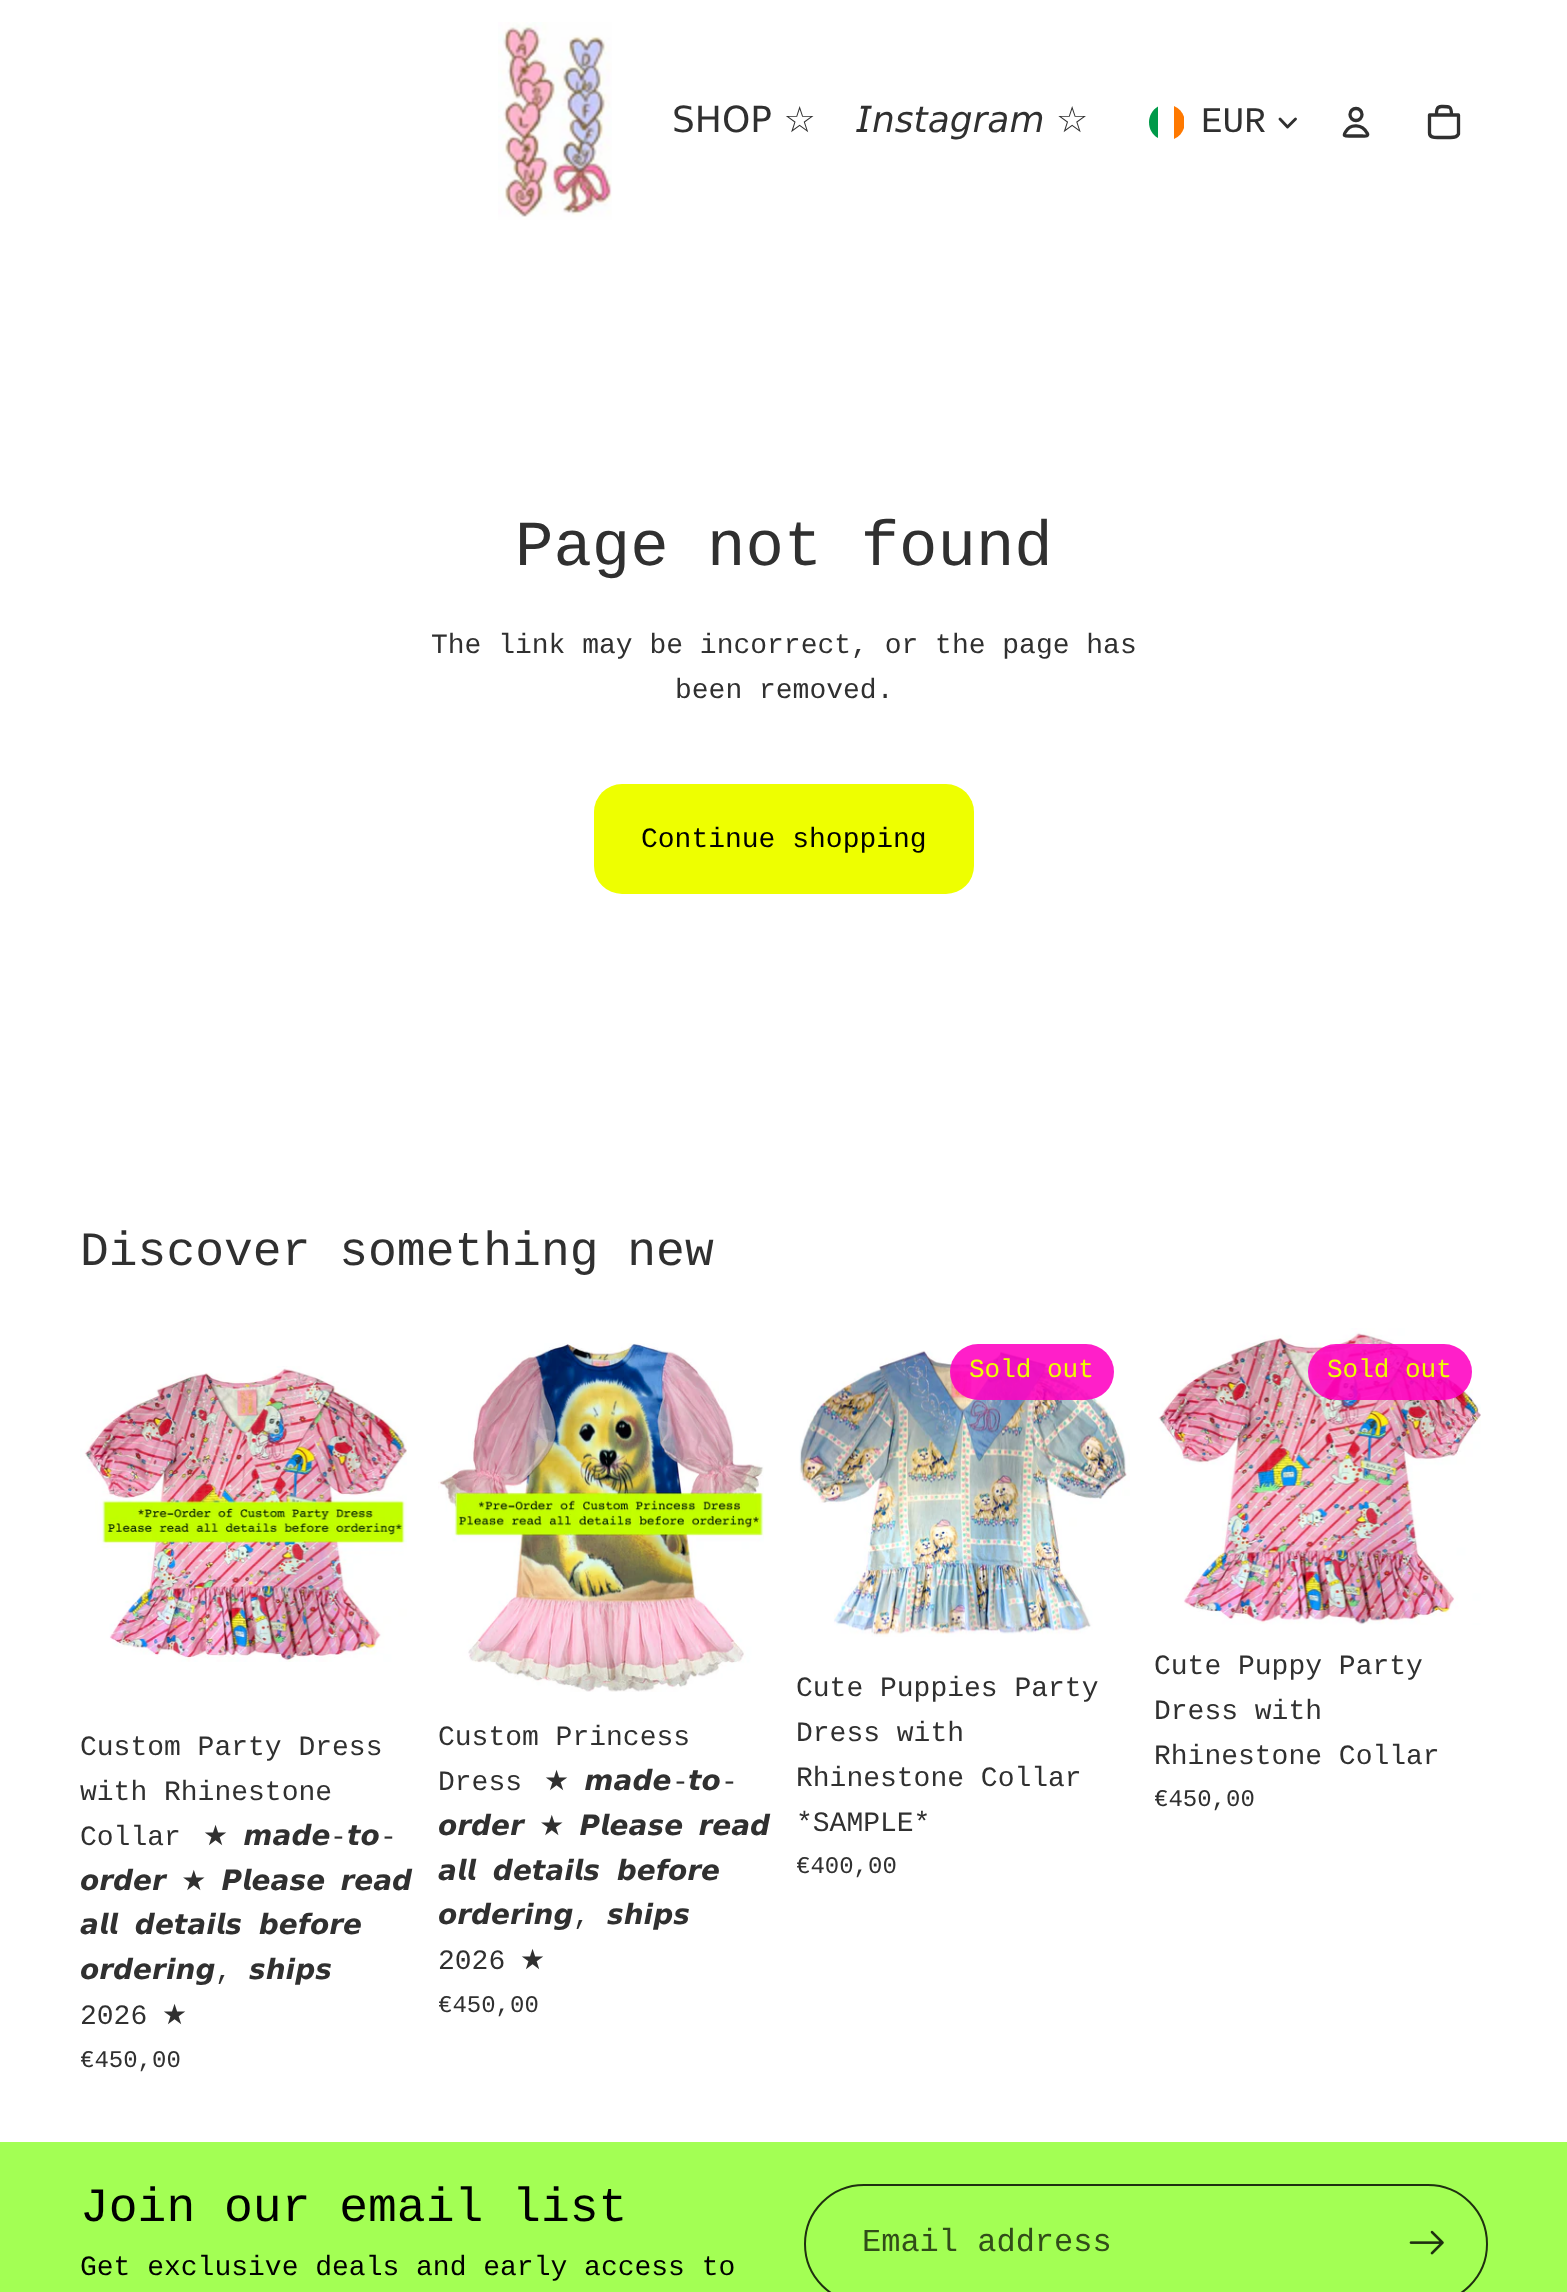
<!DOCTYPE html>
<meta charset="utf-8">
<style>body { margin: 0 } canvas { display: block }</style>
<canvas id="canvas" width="1567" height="2292"></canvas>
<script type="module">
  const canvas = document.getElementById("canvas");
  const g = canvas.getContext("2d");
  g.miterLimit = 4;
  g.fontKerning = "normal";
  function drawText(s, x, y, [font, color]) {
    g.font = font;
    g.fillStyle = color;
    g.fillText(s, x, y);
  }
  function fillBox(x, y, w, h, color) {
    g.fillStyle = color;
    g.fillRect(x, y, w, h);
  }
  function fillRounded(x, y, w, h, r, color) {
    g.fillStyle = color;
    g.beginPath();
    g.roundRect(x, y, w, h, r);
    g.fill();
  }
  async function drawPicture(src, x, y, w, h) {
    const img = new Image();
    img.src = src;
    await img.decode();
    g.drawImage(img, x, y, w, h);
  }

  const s1 = ["36px DejaVu Sans", "#303030"];
  const s2 = ["italic 36px DejaVu Sans", "#303030"];
  const s3 = ["36px Liberation Mono", "#303030"];
  const s4 = ["64px Liberation Mono", "#303030"];
  const s5 = ["28px Liberation Mono", "#303030"];
  const s6 = ["28px Liberation Mono", "#000000"];
  const s7 = ["48px Liberation Mono", "#303030"];
  const s8 = ["26px Liberation Mono", "#EEFF00"];
  const s9 = ["24px Liberation Mono", "#303030"];
  const s10 = ["italic bold 28px DejaVu Sans", "#303030"];
  const s11 = ["48px Liberation Mono", "#000000"];
  const s12 = ["32px Liberation Mono", "#314D19"];

  fillBox(0, 0, 1567, 2292, "#FFFFFF");
  await drawPicture("pic1.png", 498, 22, 114, 198);
  drawText("𝖲𝖧𝖮𝖯 ☆", 672, 132, s1);
  drawText("𝘐𝘯𝘴𝘵𝘢𝘨𝘳𝘢𝘮 ☆", 856, 132, s2);
  g.fillStyle = "#009A49";
  g.beginPath();
  g.moveTo(1158, 106.5);
  g.lineTo(1158, 138);
  g.bezierCurveTo(1146, 131.5, 1146, 113.5, 1158, 106.5);
  g.closePath();
  g.fill();
  g.save();
  g.beginPath();
  g.rect(1148, 104, 36, 36);
  g.clip();
  g.fillStyle = "#FF7900";
  g.beginPath();
  g.moveTo(1174, 139);
  g.lineTo(1174, 106);
  g.bezierCurveTo(1188.5, 112, 1188.5, 132.5, 1174, 139);
  g.closePath();
  g.fill();
  g.restore();
  drawText("EUR", 1201, 132, s3);
  g.beginPath();
  g.moveTo(1295.5, 119);
  g.lineTo(1287.5, 127);
  g.lineTo(1280, 119);
  g.strokeStyle = "#303030";
  g.lineWidth = 2.9;
  g.lineCap = "round";
  g.lineJoin = "round";
  g.stroke();
  g.beginPath();
  g.arc(1356, 114.5, 6, 0, Math.PI * 2);
  g.lineWidth = 3.3;
  g.stroke();
  g.beginPath();
  g.moveTo(1345.5, 132);
  g.bezierCurveTo(1343, 136, 1344.5, 136, 1349, 136);
  g.lineTo(1363, 136);
  g.bezierCurveTo(1363.5, 136, 1367, 136.5, 1367.5, 135);
  g.bezierCurveTo(1368, 134.5, 1367.5, 133.5, 1367, 133);
  g.bezierCurveTo(1362.5, 124.5, 1350.5, 123, 1345.5, 132);
  g.stroke();
  g.beginPath();
  g.moveTo(1429.5, 115);
  g.lineTo(1458.5, 115);
  g.lineTo(1458.5, 134);
  g.bezierCurveTo(1457, 137.5, 1453.5, 137.5, 1450.5, 137.5);
  g.lineTo(1437.5, 137.5);
  g.bezierCurveTo(1434, 137.5, 1429.5, 137.5, 1429.5, 133);
  g.closePath();
  g.moveTo(1441.5, 106.5);
  g.bezierCurveTo(1449.5, 106.5, 1451.5, 106, 1451.5, 115);
  g.lineTo(1436.5, 115);
  g.bezierCurveTo(1436.5, 111.5, 1436, 106.5, 1441.5, 106.5);
  g.stroke();
  drawText("Page not found", 515, 565, s4);
  drawText("The link may be incorrect, or the page has", 431, 653, s5);
  drawText("been removed.", 675, 698, s5);
  fillRounded(594, 784, 380, 110, 28, "#EEFF00");
  drawText("Continue shopping", 641, 847, s6);
  drawText("Discover something new", 80, 1265, s7);
  await drawPicture("pic2.png", 799, 1350, 331, 287);
  fillRounded(950, 1344, 164, 56, 28, "rgba(255, 0, 194, 0.88)");
  drawText("Sold out", 969, 1377, s8);
  drawText("Cute Puppies Party", 796, 1696, s5);
  drawText("Dress with", 796, 1741, s5);
  drawText("Rhinestone Collar", 796, 1786, s5);
  drawText("*SAMPLE*", 796, 1831, s5);
  drawText("€400,00", 796, 1873, s9);
  await drawPicture("pic3.png", 1158, 1328, 323, 297);
  fillRounded(1308, 1344, 164, 56, 28, "rgba(255, 0, 194, 0.88)");
  drawText("Sold out", 1327, 1377, s8);
  drawText("Cute Puppy Party", 1154, 1674, s5);
  drawText("Dress with", 1154, 1719, s5);
  drawText("Rhinestone Collar", 1154, 1764, s5);
  drawText("€450,00", 1154, 1806, s9);
  await drawPicture("pic4.png", 80, 1366, 327, 296);
  drawText("Custom Party Dress", 80, 1755, s5);
  drawText("with Rhinestone", 80, 1800, s5);
  drawText("Collar", 80, 1845, s5);
  g.wordSpacing = "5.5px";
  drawText("★ 𝙢𝙖𝙙𝙚", 203, 1845, s10);
  g.wordSpacing = "0px";
  drawText("-", 330, 1845, s5);
  drawText("𝙩𝙤", 347, 1845, s10);
  drawText("-", 380, 1845, s5);
  g.wordSpacing = "5.5px";
  drawText("𝙤𝙧𝙙𝙚𝙧 ★ 𝙋𝙡𝙚𝙖𝙨𝙚 𝙧𝙚𝙖𝙙", 80, 1890, s10);
  g.wordSpacing = "7px";
  drawText("𝙖𝙡𝙡 𝙙𝙚𝙩𝙖𝙞𝙡𝙨 𝙗𝙚𝙛𝙤𝙧𝙚", 80, 1934, s10);
  g.wordSpacing = "0px";
  drawText("𝙤𝙧𝙙𝙚𝙧𝙞𝙣𝙜", 80, 1979, s10);
  drawText(",", 215, 1979, s5);
  drawText("𝙨𝙝𝙞𝙥𝙨", 249, 1979, s10);
  drawText("2026", 80, 2024, s5);
  drawText("★", 162, 2024, s10);
  drawText("€450,00", 80, 2067, s9);
  await drawPicture("pic5.png", 438, 1343, 326, 349);
  drawText("Custom Princess", 438, 1745, s5);
  drawText("Dress", 438, 1790, s5);
  g.wordSpacing = "5.5px";
  drawText("★ 𝙢𝙖𝙙𝙚", 544, 1790, s10);
  g.wordSpacing = "0px";
  drawText("-", 672, 1790, s5);
  drawText("𝙩𝙤", 688, 1790, s10);
  drawText("-", 721, 1790, s5);
  g.wordSpacing = "5.5px";
  drawText("𝙤𝙧𝙙𝙚𝙧 ★ 𝙋𝙡𝙚𝙖𝙨𝙚 𝙧𝙚𝙖𝙙", 438, 1835, s10);
  g.wordSpacing = "7px";
  drawText("𝙖𝙡𝙡 𝙙𝙚𝙩𝙖𝙞𝙡𝙨 𝙗𝙚𝙛𝙤𝙧𝙚", 438, 1880, s10);
  g.wordSpacing = "0px";
  drawText("𝙤𝙧𝙙𝙚𝙧𝙞𝙣𝙜", 438, 1924, s10);
  drawText(",", 573, 1924, s5);
  drawText("𝙨𝙝𝙞𝙥𝙨", 607, 1924, s10);
  drawText("2026", 438, 1969, s5);
  drawText("★", 520, 1969, s10);
  drawText("€450,00", 438, 2012, s9);
  fillBox(0, 2142, 1567, 150, "#A3FF54");
  drawText("Join our email list", 80, 2221, s11);
  drawText("Get exclusive deals and early access to", 80, 2275, s6);
  g.beginPath();
  g.roundRect(805, 2185, 682, 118, 59);
  g.strokeStyle = "#1F3010";
  g.lineWidth = 2;
  g.lineJoin = "miter";
  g.stroke();
  drawText("Email address", 862, 2251, s12);
  await drawPicture("pic6.png", 1409, 2230, 35, 25);
</script>
